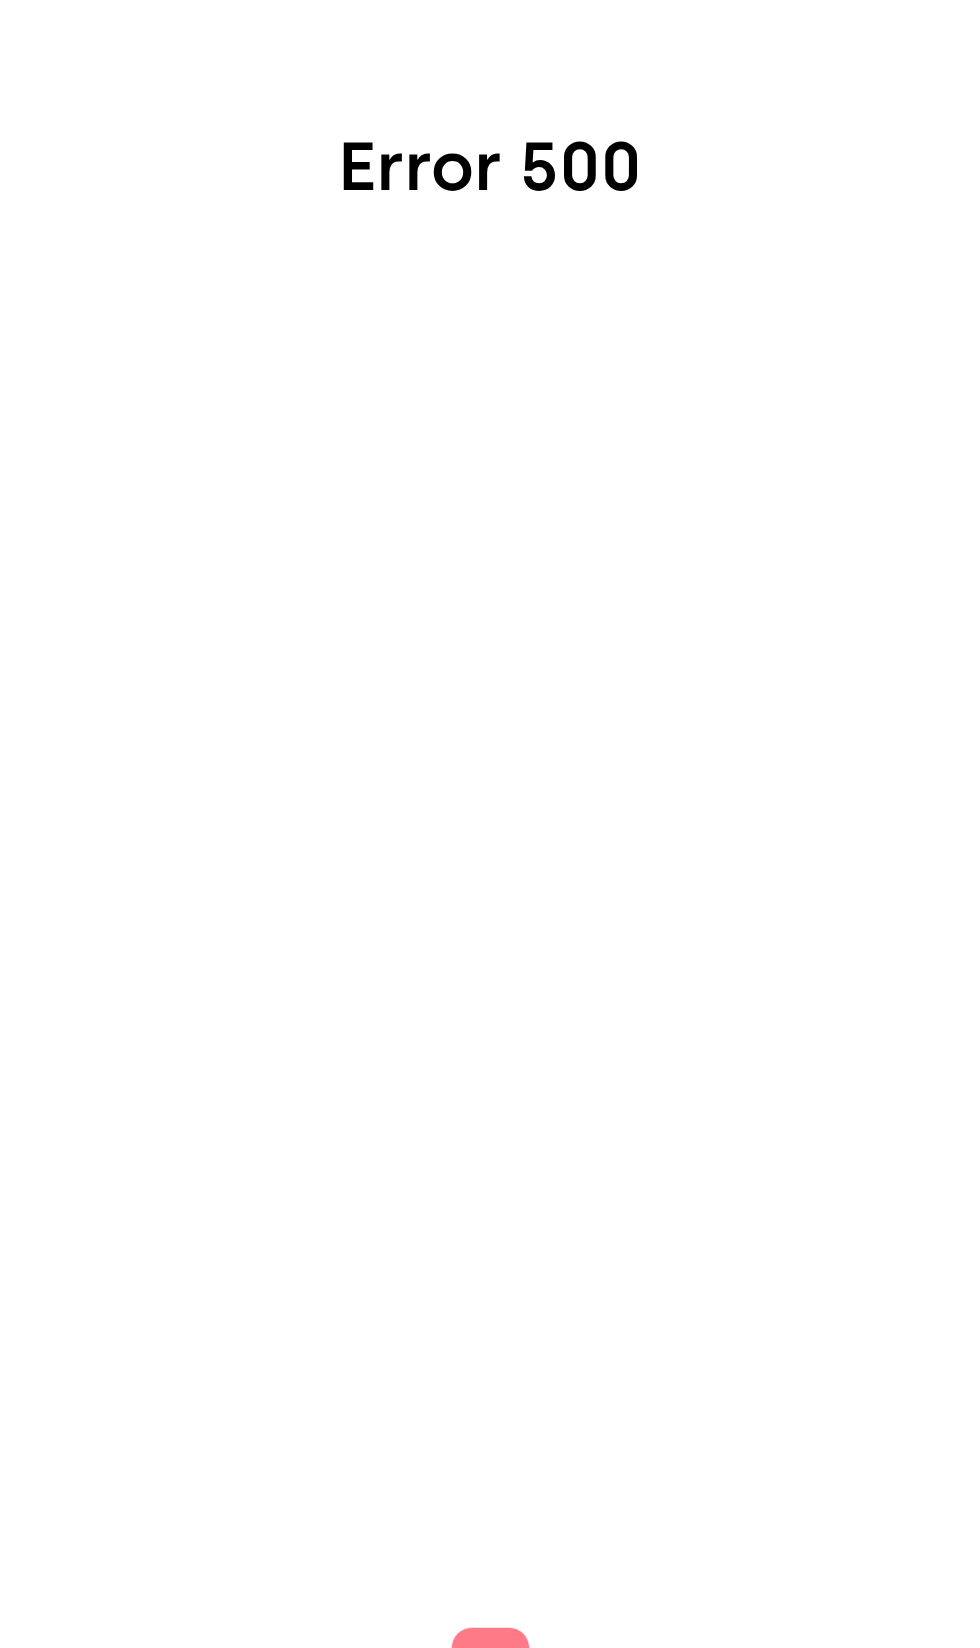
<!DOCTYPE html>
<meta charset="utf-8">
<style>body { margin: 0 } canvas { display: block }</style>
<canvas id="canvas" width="980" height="1648"></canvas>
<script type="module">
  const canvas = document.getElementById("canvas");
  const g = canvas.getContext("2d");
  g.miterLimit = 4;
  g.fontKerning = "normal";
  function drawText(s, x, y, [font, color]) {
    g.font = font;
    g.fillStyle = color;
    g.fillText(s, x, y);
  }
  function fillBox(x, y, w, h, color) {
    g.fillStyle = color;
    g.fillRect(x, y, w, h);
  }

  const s1 = ["600 68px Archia", "#000000"];

  fillBox(0, 0, 980, 1648, "#FFFFFF");
  drawText("Error 500", 338, 190, s1);
  g.fillStyle = "#FF7A87";
  g.beginPath();
  g.roundRect(451.5, 1627.5, 78, 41, 20.5);
  g.fill();
  g.strokeStyle = "#E5E7EB";
  g.stroke();
</script>
